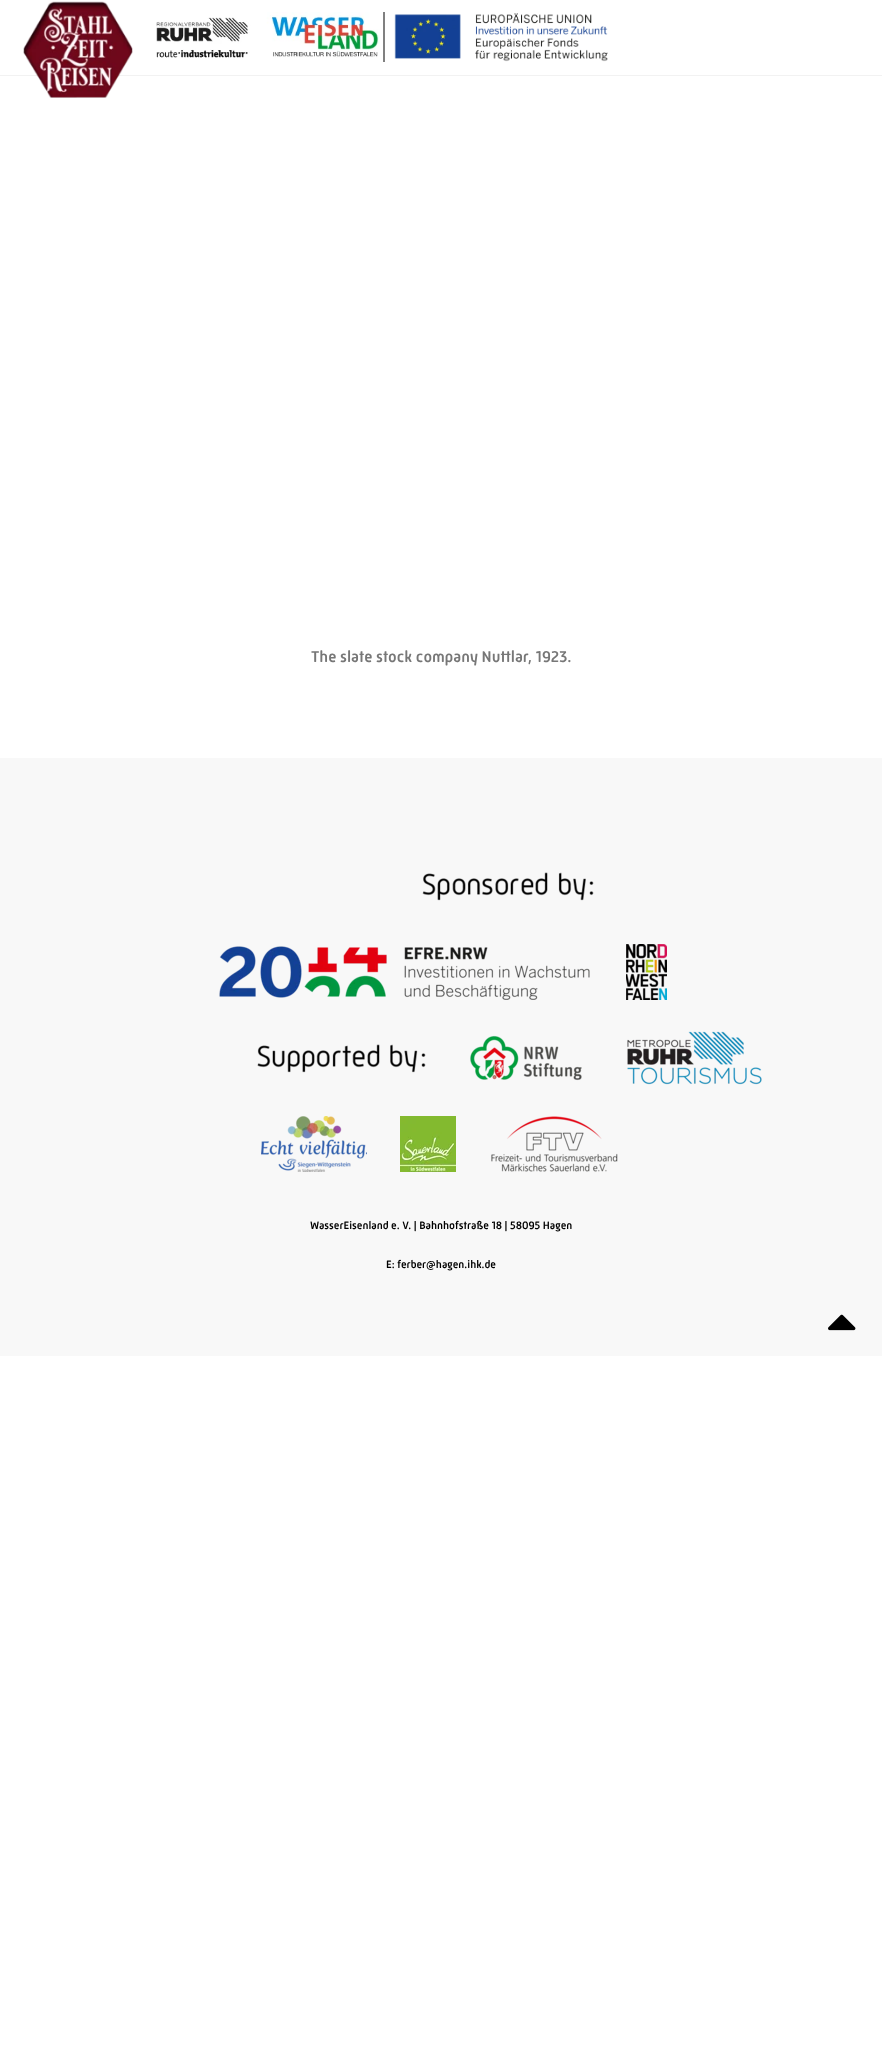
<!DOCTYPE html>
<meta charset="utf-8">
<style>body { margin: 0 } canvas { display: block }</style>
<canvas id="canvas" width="882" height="2057"></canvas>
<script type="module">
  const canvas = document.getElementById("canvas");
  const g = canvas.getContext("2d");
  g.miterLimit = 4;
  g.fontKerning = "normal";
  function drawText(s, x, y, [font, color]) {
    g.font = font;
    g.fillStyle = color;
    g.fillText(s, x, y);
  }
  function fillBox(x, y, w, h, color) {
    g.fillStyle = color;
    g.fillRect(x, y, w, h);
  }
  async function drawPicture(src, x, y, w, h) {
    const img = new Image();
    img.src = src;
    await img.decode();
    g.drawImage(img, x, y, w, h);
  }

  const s1 = ["500 16px 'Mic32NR'", "#777777"];
  const s2 = ["500 11px 'Mic32NR'", "#000000"];

  fillBox(0, 0, 882, 2057, "#FFFFFF");
  fillBox(0, 75, 882, 1, "#F2F2F2");
  await drawPicture("pic1.png", 23, 1, 110, 97);
  fillBox(383, 12, 2, 50, "#808080");
  await drawPicture("pic2.png", 156, 12, 224, 46);
  await drawPicture("pic3.png", 394, 13, 214, 49);
  drawText("The slate stock company Nuttlar, 1923.", 311, 662, s1);
  fillBox(0, 758, 882, 598, "#F8F8F8");
  await drawPicture("pic4.png", 422, 872, 172, 29);
  await drawPicture("pic5.png", 219, 946, 371, 54);
  await drawPicture("pic6.png", 626, 944, 41, 56);
  await drawPicture("pic7.png", 257, 1044, 169, 29);
  await drawPicture("pic8.png", 470, 1035, 112, 46);
  await drawPicture("pic9.png", 627, 1031, 135, 54);
  await drawPicture("pic10.png", 261, 1116, 106, 56);
  await drawPicture("pic11.png", 400, 1116, 56, 56);
  await drawPicture("pic12.png", 491, 1116, 127, 56);
  drawText("WasserEisenland e. V. | Bahnhofstraße 18 | 58095 Hagen", 310, 1229, s2);
  drawText("E: ferber@hagen.ihk.de", 386, 1268, s2);
  await drawPicture("pic13.png", 828, 1314, 28, 17);
</script>
